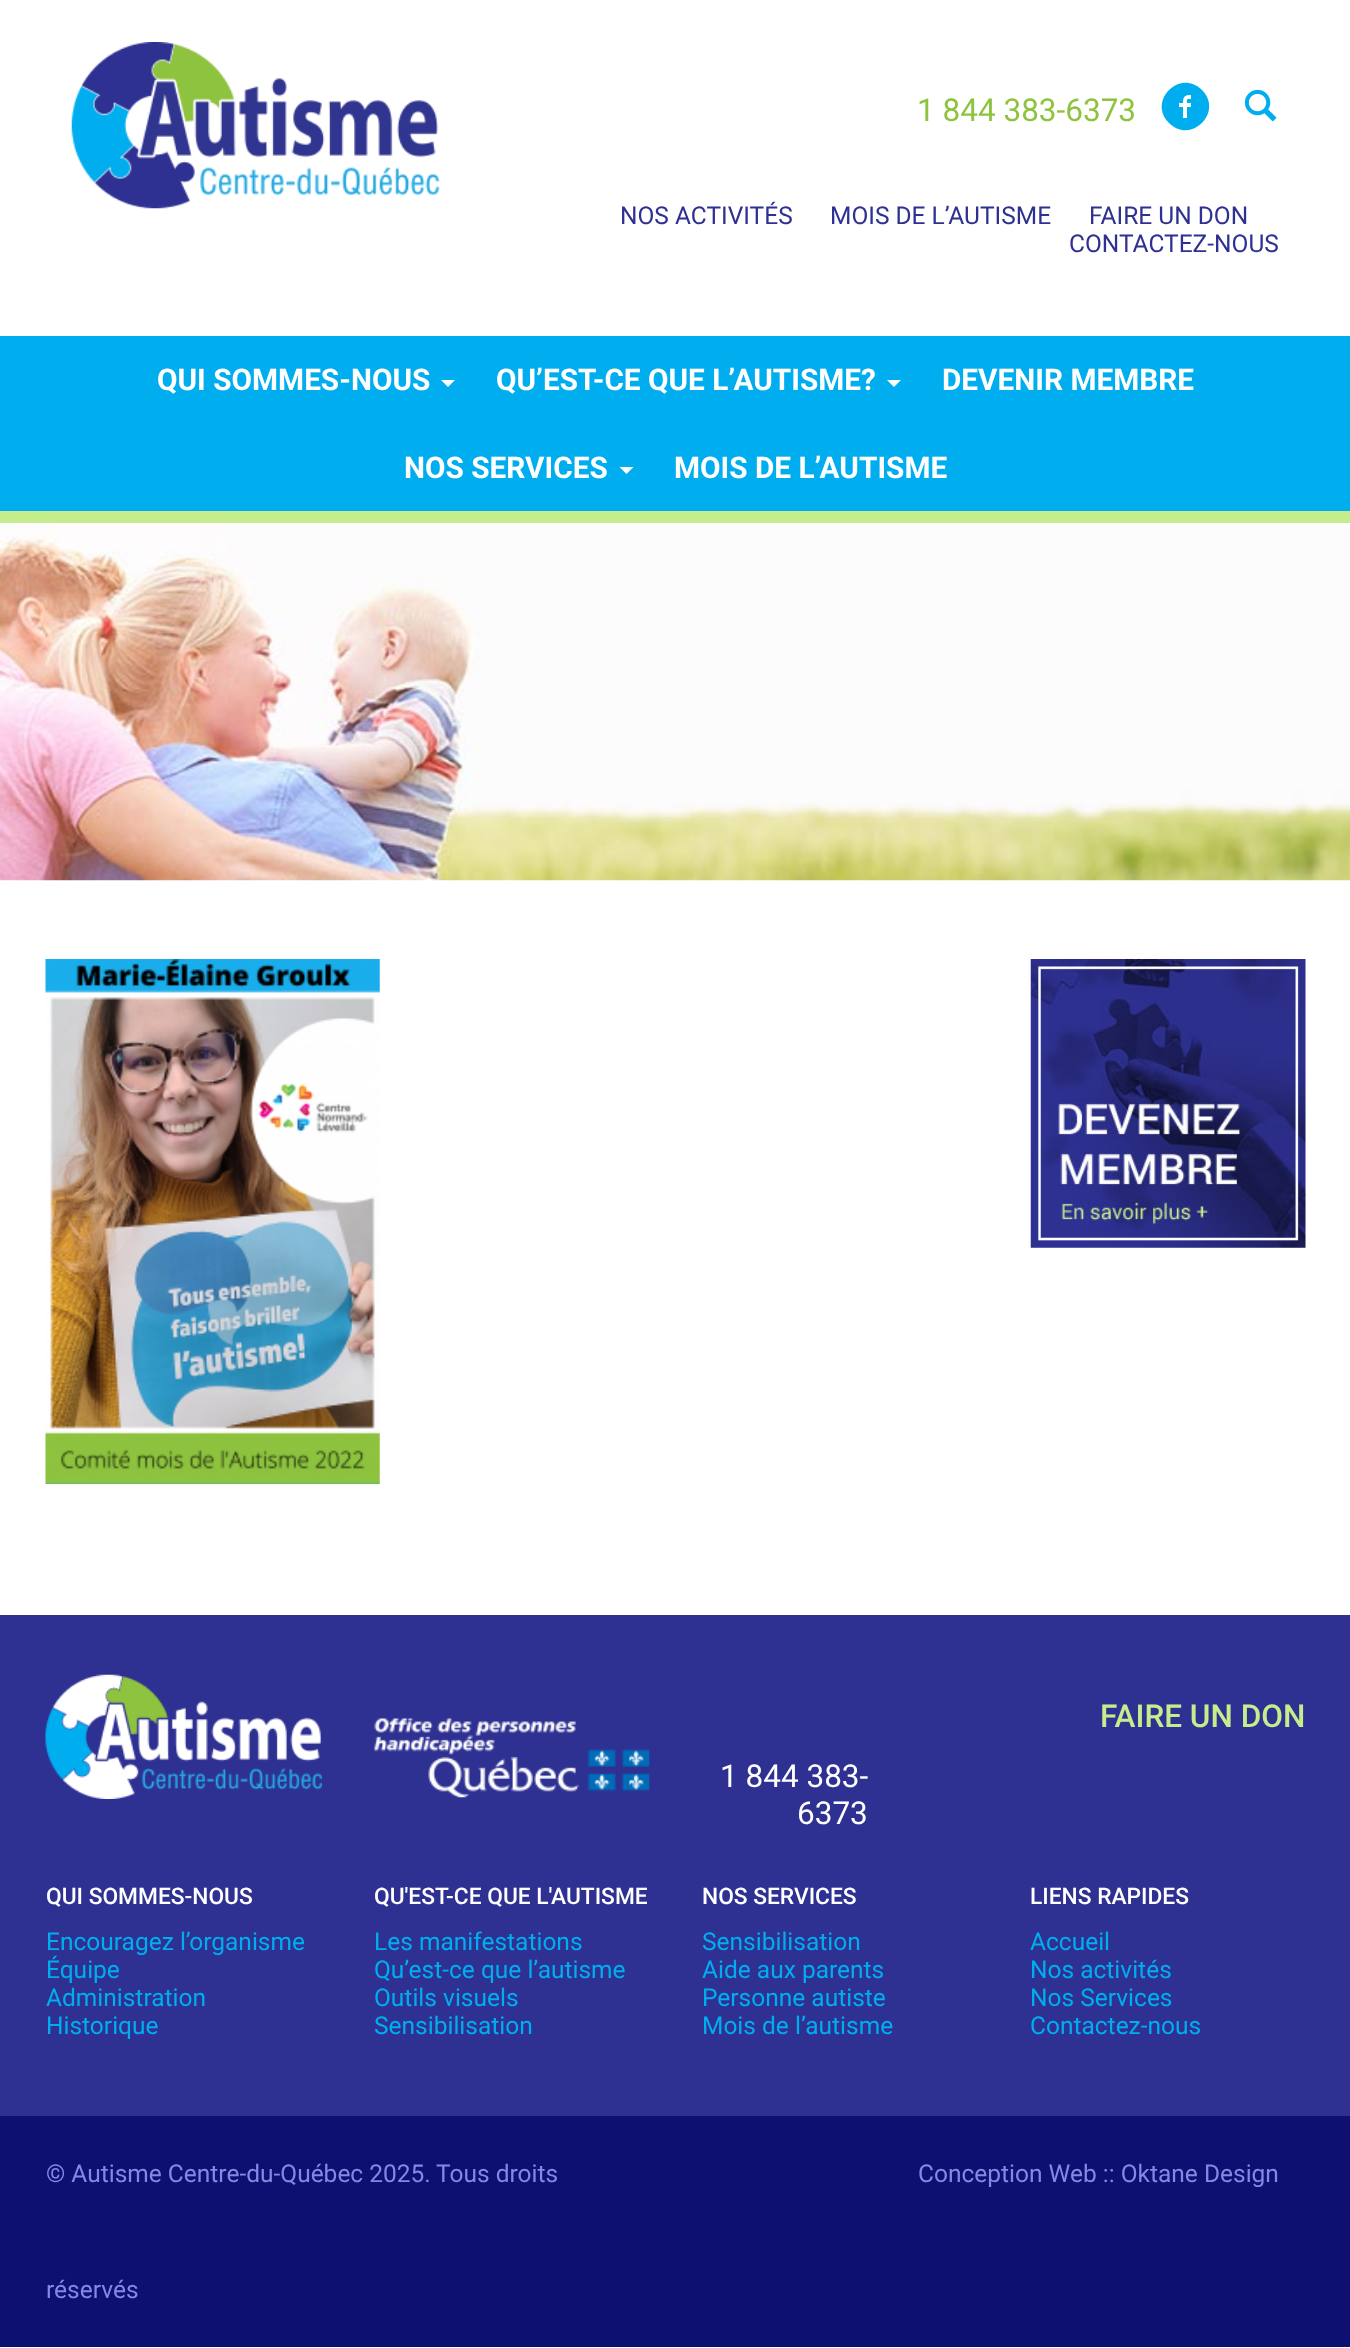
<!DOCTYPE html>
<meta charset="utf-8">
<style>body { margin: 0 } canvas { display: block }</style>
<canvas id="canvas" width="1350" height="2348"></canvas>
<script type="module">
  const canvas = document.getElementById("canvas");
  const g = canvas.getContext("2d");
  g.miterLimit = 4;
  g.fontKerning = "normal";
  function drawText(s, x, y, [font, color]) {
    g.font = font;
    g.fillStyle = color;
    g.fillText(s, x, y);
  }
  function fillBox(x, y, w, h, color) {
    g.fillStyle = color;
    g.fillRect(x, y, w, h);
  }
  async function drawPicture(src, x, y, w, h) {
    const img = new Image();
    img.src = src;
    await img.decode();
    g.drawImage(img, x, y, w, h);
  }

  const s1 = ["31.5px Roboto", "#8EC33F"];
  const s2 = ["24.5px Roboto", "#2E3192"];
  const s3 = ["bold 29.75px Roboto", "#FFFFFF"];
  const s4 = ["31.5px Roboto", "#FFFFFF"];
  const s5 = ["500 31.5px Roboto", "#C6ED8B"];
  const s6 = ["500 22.75px Roboto", "#FFFFFF"];
  const s7 = ["24.5px Roboto", "#00AEEF"];
  const s8 = ["24.5px Roboto", "#8588E2"];

  fillBox(0, 0, 1350, 2348, "#FFFFFF");
  await drawPicture("pic1.png", 71, 42, 369, 167);
  drawText("1 844 383-6373", 917, 121, s1);
  g.fillStyle = "#00AEEF";
  g.beginPath();
  g.moveTo(1202, 90);
  g.bezierCurveTo(1180, 68, 1147, 101, 1169, 123);
  g.bezierCurveTo(1191, 145, 1224, 112, 1202, 90);
  g.closePath();
  g.moveTo(1191, 99);
  g.bezierCurveTo(1186, 99, 1187, 99, 1187, 103);
  g.lineTo(1191, 103);
  g.lineTo(1191, 107);
  g.lineTo(1187, 107);
  g.lineTo(1187, 118);
  g.lineTo(1183, 118);
  g.lineTo(1183, 107);
  g.lineTo(1179, 107);
  g.lineTo(1179, 103);
  g.lineTo(1183, 103);
  g.bezierCurveTo(1183, 96, 1185, 95, 1191, 95);
  g.closePath();
  g.fill();
  await drawPicture("pic2.png", 1244, 89, 33, 33);
  drawText("NOS ACTIVITÉS", 620, 224, s2);
  drawText("MOIS DE L’AUTISME", 830, 224, s2);
  drawText("FAIRE UN DON", 1089, 224, s2);
  drawText("CONTACTEZ-NOUS", 1069, 252, s2);
  fillBox(0, 336, 1350, 175, "#00AEEF");
  fillBox(0, 511, 1350, 12, "#C6ED8B");
  drawText("QUI SOMMES-NOUS", 157, 390, s3);
  g.beginPath();
  g.moveTo(441, 380);
  g.lineTo(455, 380);
  g.lineTo(448, 387);
  g.closePath();
  g.fill();
  drawText("QU’EST-CE QUE L’AUTISME?", 496, 390, s3);
  g.beginPath();
  g.moveTo(887, 380);
  g.lineTo(901, 380);
  g.lineTo(894, 387);
  g.closePath();
  g.fill();
  drawText("DEVENIR MEMBRE", 942, 390, s3);
  drawText("NOS SERVICES", 404, 478, s3);
  g.beginPath();
  g.moveTo(619.5, 467);
  g.lineTo(633.5, 467);
  g.lineTo(626.5, 474);
  g.closePath();
  g.fill();
  drawText("MOIS DE L’AUTISME", 674, 478, s3);
  await drawPicture("pic3.png", 0, 524, 1350, 357);
  await drawPicture("pic4.png", 45, 959, 335, 525);
  await drawPicture("pic5.png", 1030, 959, 276, 289);
  fillBox(0, 1615, 1350, 501, "#2E3192");
  await drawPicture("pic6.png", 45, 1674, 277, 125);
  await drawPicture("pic7.png", 374, 1718, 276, 80);
  drawText("1 844 383-", 720, 1787, s4);
  drawText("6373", 797, 1824, s4);
  drawText("FAIRE UN DON", 1100, 1727, s5);
  drawText("QUI SOMMES-NOUS", 46, 1904, s6);
  drawText("Encouragez l’organisme", 46, 1950, s7);
  drawText("Équipe", 46, 1978, s7);
  drawText("Administration", 46, 2006, s7);
  drawText("Historique", 46, 2034, s7);
  drawText("QU'EST-CE QUE L'AUTISME", 374, 1904, s6);
  drawText("Les manifestations", 374, 1950, s7);
  drawText("Qu’est-ce que l’autisme", 374, 1978, s7);
  drawText("Outils visuels", 374, 2006, s7);
  drawText("Sensibilisation", 374, 2034, s7);
  drawText("NOS SERVICES", 702, 1904, s6);
  drawText("Sensibilisation", 702, 1950, s7);
  drawText("Aide aux parents", 702, 1978, s7);
  drawText("Personne autiste", 702, 2006, s7);
  drawText("Mois de l’autisme", 702, 2034, s7);
  drawText("LIENS RAPIDES", 1030, 1904, s6);
  drawText("Accueil", 1030, 1950, s7);
  drawText("Nos activités", 1030, 1978, s7);
  drawText("Nos Services", 1030, 2006, s7);
  drawText("Contactez-nous", 1030, 2034, s7);
  fillBox(0, 2116, 1350, 231, "#0D1070");
  drawText("© Autisme Centre-du-Québec 2025.", 46, 2182, s8);
  drawText("Tous droits", 436, 2182, s8);
  drawText("réservés", 46, 2298, s8);
  drawText("Conception Web :: Oktane Design", 918, 2182, s8);
</script>
